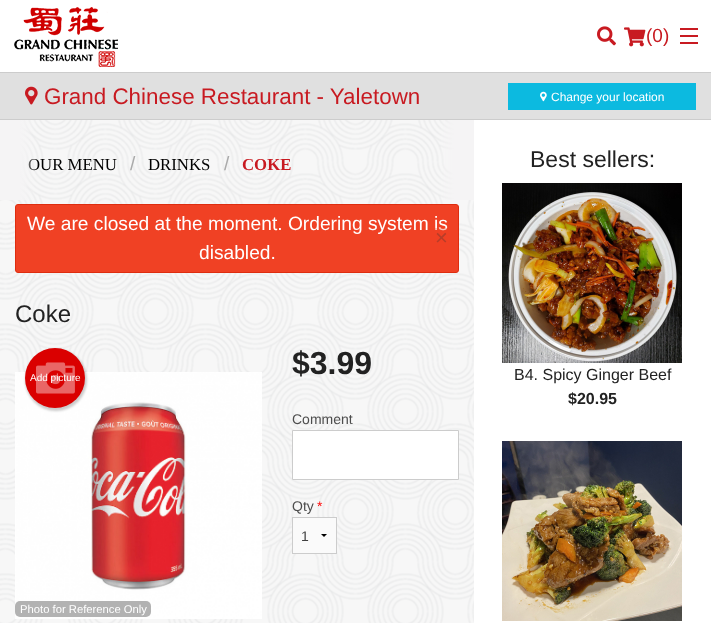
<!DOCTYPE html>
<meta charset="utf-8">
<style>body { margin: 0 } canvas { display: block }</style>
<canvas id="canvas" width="711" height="623"></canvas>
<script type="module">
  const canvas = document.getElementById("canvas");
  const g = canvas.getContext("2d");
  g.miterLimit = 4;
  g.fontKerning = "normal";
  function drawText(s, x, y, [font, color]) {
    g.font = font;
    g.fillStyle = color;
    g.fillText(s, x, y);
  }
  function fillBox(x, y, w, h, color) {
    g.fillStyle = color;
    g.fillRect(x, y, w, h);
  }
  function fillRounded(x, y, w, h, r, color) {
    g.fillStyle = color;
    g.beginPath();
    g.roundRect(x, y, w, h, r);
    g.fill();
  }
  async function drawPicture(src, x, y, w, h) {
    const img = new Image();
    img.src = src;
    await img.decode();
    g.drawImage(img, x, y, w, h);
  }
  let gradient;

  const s1 = ["19px Liberation Sans", "#C81A21"];
  const s2 = ["22.4px Liberation Sans", "#C81A21"];
  const s3 = ["12px Liberation Sans", "#FFFFFF"];
  const s4 = ["16.75px Liberation Serif", "#000000"];
  const s5 = ["19.2px Liberation Sans", "#AAAAAA"];
  const s6 = ["bold 16.75px Liberation Serif", "#C81A21"];
  const s7 = ["19.2px Liberation Sans", "#FFFFFF"];
  const s8 = ["22px Liberation Sans", "#B73D29"];
  const s9 = ["24px Liberation Sans", "#222222"];
  const s10 = ["10px Liberation Sans", "#FFFFFF"];
  const s11 = ["11.25px Liberation Sans", "#FFFFFF"];
  const s12 = ["bold 32px Liberation Sans", "#222222"];
  const s13 = ["14px Liberation Sans", "#4D4D4D"];
  const s14 = ["14px Liberation Sans", "#FF0000"];
  const s15 = ["14px Liberation Sans", "#3F3F3F"];
  const s16 = ["23px Liberation Sans", "#222222"];
  const s17 = ["16px Liberation Sans", "#222222"];
  const s18 = ["bold 16px Liberation Sans", "#222222"];

  fillBox(0, 0, 711, 623, "#FFFFFF");
  await drawPicture("pic1.png", 0, 120, 474, 503);
  await drawPicture("pic2.png", 14, 7, 104, 60);
  await drawPicture("pic3.png", 597, 26, 19, 20);
  await drawPicture("pic4.png", 624, 27, 22, 20);
  drawText("(0)", 646, 42, s1);
  fillBox(680, 42, 18, 2, "#C81A21");
  fillBox(680, 35, 18, 2, "#C81A21");
  fillBox(680, 28, 18, 2, "#C81A21");
  fillBox(0, 73, 711, 46, "#E0E0E0");
  fillBox(0, 72, 711, 1, "#CCCCCC");
  fillBox(0, 119, 711, 1, "#CCCCCC");
  await drawPicture("pic5.png", 25, 86, 13, 19);
  drawText("Grand Chinese Restaurant - Yaletown", 44, 104, s2);
  fillBox(508, 83, 188, 27, "#0CBAE0");
  await drawPicture("pic6.png", 540, 91, 7, 11);
  drawText("Change your location", 551, 101, s3);
  drawText("OUR MENU", 28, 170, s4);
  gradient = g.createLinearGradient(35, 160, 0, 160);
  gradient.addColorStop(0, "rgba(245, 244, 245, 0)");
  gradient.addColorStop(0.43, "#F5F4F5");
  gradient.addColorStop(1, "#F5F4F5");
  g.fillStyle = gradient;
  g.fillRect(0, 120, 35, 80);
  drawText("/", 130, 170, s5);
  drawText("DRINKS", 148, 170, s4);
  drawText("/", 224, 170, s5);
  drawText("COKE", 242, 170, s6);
  g.fillStyle = "#F04124";
  g.beginPath();
  g.roundRect(15.5, 204.5, 443, 68, 2.5);
  g.fill();
  g.strokeStyle = "#DE2D0F";
  g.stroke();
  drawText("We are closed at the moment. Ordering system is", 27, 230, s7);
  fillBox(435, 228, 12, 3, "rgba(240, 65, 36, 0.3)");
  drawText("×", 435, 245, s8);
  drawText("disabled.", 199, 259, s7);
  drawText("Coke", 15, 322, s9);
  await drawPicture("pic7.png", 15, 372, 247, 247);
  g.fillStyle = "rgba(0, 0, 0, 0.2)";
  g.filter = "blur(1px)";
  g.beginPath();
  g.roundRect(25, 349, 62, 62, 31);
  g.fill();
  g.filter = "none";
  g.fillStyle = "#DA0000";
  g.beginPath();
  g.arc(55, 378, 30, 0, Math.PI * 2);
  g.fill();
  await drawPicture("pic8.png", 36, 362, 39, 32);
  drawText("Add picture", 30, 381, s10);
  fillRounded(15, 601, 136, 16, 5, "#B2B2B2");
  drawText("Photo for Reference Only", 20, 613, s11);
  drawText("$3.99", 292, 374, s12);
  drawText("Comment", 292, 424, s13);
  g.fillStyle = "#FFFFFF";
  g.beginPath();
  g.rect(292.5, 430.5, 166, 49);
  g.fill();
  g.strokeStyle = "#CCCCCC";
  g.stroke();
  drawText("Qty", 292, 511, s13);
  drawText("*", 317, 511, s14);
  fillBox(293, 518, 43, 35, "#FAFAFA");
  g.fillStyle = "#000000";
  g.beginPath();
  g.moveTo(327, 534);
  g.lineTo(324, 537);
  g.lineTo(321, 534);
  g.closePath();
  g.fill();
  g.strokeRect(292.5, 517.5, 44, 36);
  drawText("1", 301, 541, s15);
  drawText("Best sellers:", 530, 167, s16);
  await drawPicture("pic9.png", 502, 183, 180, 180);
  drawText("B4. Spicy Ginger Beef", 514, 380, s17);
  drawText("$20.95", 568, 404, s18);
  await drawPicture("pic10.png", 502, 441, 180, 180);
</script>
